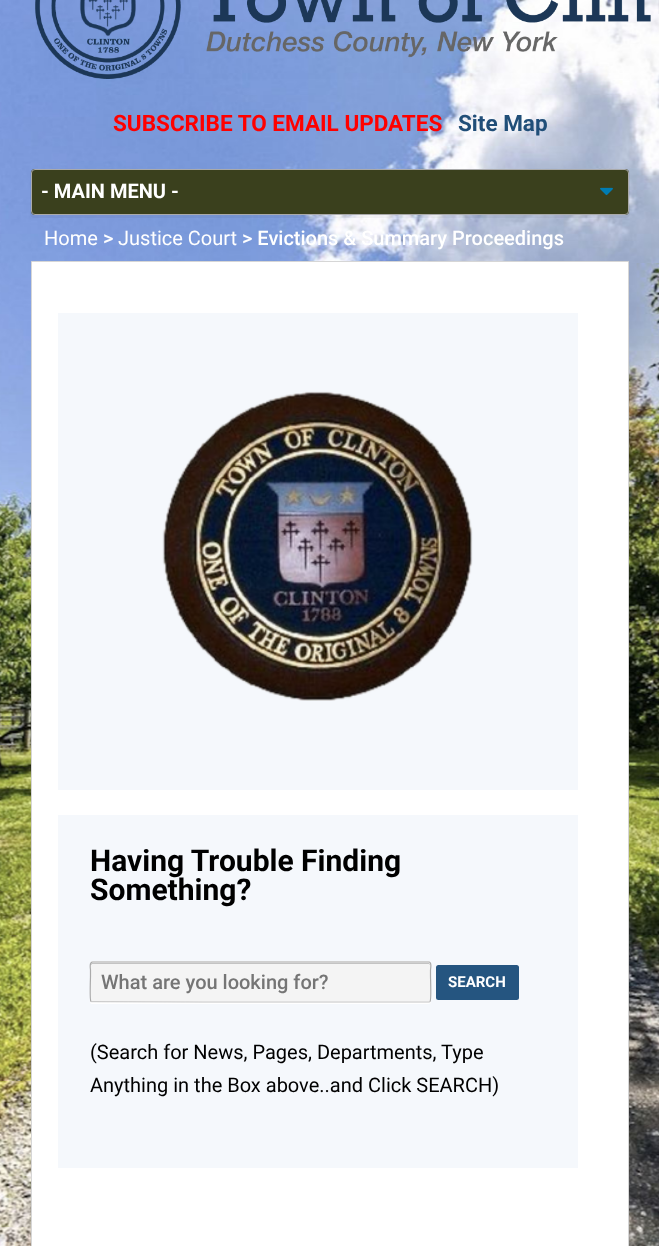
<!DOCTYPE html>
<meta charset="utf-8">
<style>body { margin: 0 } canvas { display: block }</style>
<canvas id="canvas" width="659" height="1246"></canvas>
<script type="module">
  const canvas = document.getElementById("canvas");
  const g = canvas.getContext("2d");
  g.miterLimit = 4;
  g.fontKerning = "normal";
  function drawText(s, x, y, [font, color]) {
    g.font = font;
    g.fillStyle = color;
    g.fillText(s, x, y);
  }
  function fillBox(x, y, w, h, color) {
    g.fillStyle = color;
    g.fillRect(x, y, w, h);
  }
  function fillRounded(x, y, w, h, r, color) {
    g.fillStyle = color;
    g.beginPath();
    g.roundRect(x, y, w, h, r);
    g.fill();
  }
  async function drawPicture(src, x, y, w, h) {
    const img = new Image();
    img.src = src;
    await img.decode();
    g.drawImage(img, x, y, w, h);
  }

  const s1 = ["bold 22.5px Roboto", "#FF0000"];
  const s2 = ["bold 22.5px Roboto", "#204E78"];
  const s3 = ["bold 20px Roboto", "#FFFFFF"];
  const s4 = ["20px Roboto", "#FFFFFF"];
  const s5 = ["500 20px Roboto", "#FFFFFF"];
  const s6 = ["bold 30px Roboto", "#000000"];
  const s7 = ["500 20px Roboto", "#757575"];
  const s8 = ["bold 15px Roboto", "#FFFFFF"];
  const s9 = ["20px Roboto", "#000000"];

  fillBox(0, 0, 659, 1246, "#FFFFFF");
  await drawPicture("pic1.png", 0, 0, 659, 1246);
  await drawPicture("pic2.png", 35, 0, 624, 79);
  drawText("SUBSCRIBE TO EMAIL UPDATES", 113, 131, s1);
  drawText("Site Map", 458, 131, s2);
  g.fillStyle = "rgba(0, 0, 0, 0.04)";
  g.beginPath();
  g.moveTo(33, 170);
  g.bezierCurveTo(31, 170, 30, 172, 30, 174);
  g.lineTo(30, 213);
  g.bezierCurveTo(30, 216, 32, 218, 35, 218);
  g.lineTo(625, 218);
  g.bezierCurveTo(628, 218, 630, 216, 630, 213);
  g.lineTo(630, 174);
  g.bezierCurveTo(630, 172, 629, 170, 627, 170);
  g.bezierCurveTo(628, 170, 629, 171, 629, 172);
  g.lineTo(629, 211);
  g.bezierCurveTo(629, 213, 627, 215, 625, 215);
  g.lineTo(35, 215);
  g.bezierCurveTo(33, 215, 31, 213, 31, 211);
  g.lineTo(31, 172);
  g.bezierCurveTo(31, 171, 32, 170, 33, 170);
  g.closePath();
  g.fill();
  fillRounded(31, 169, 598, 46, 4, "#3A401D");
  await drawPicture("pic3.png", 600, 187, 13, 9);
  g.beginPath();
  g.roundRect(31.5, 169.5, 597, 45, 3.5);
  g.strokeStyle = "#AAAAAA";
  g.stroke();
  drawText("- MAIN MENU -", 41, 198, s3);
  drawText("Home", 44, 245, s4);
  drawText(">", 103, 245, s5);
  drawText("Justice Court", 118, 245, s4);
  drawText("> Evictions & Summary Proceedings", 242, 245, s5);
  g.beginPath();
  g.rect(31.5, 261.5, 597, 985);
  g.fill();
  g.strokeStyle = "#D6D6D6";
  g.stroke();
  fillBox(58, 313, 520, 477, "#F5F8FC");
  await drawPicture("pic4.png", 162, 391, 311, 310);
  fillBox(58, 815, 520, 353, "#F5F8FC");
  drawText("Having Trouble Finding", 90, 871, s6);
  drawText("Something?", 90, 900, s6);
  g.fillStyle = "#FFFFFF";
  g.beginPath();
  g.moveTo(90, 1000);
  g.lineTo(90, 1002);
  g.bezierCurveTo(90, 1003, 91, 1004, 92, 1004);
  g.lineTo(428, 1004);
  g.bezierCurveTo(430, 1004, 431, 1003, 431, 1002);
  g.lineTo(431, 1001);
  g.bezierCurveTo(431, 1002, 430, 1002, 429, 1002);
  g.lineTo(92, 1002);
  g.bezierCurveTo(91, 1002, 90, 1001, 90, 1000);
  g.closePath();
  g.fill();
  fillRounded(90, 961, 341, 42, 2.5, "#F4F4F4");
  g.fillStyle = "#C3C3C3";
  g.beginPath();
  g.moveTo(92, 964);
  g.lineTo(429, 964);
  g.lineTo(430, 965);
  g.lineTo(430, 964);
  g.lineTo(429, 963);
  g.lineTo(92, 963);
  g.bezierCurveTo(91, 963, 91, 964, 91, 965);
  g.closePath();
  g.fill();
  g.beginPath();
  g.moveTo(430, 1001.5);
  g.lineTo(429, 1002);
  g.lineTo(204.5, 1002);
  g.lineTo(91, 1001.5);
  g.strokeStyle = "#CCCCCC";
  g.lineWidth = 1.2;
  g.stroke();
  g.beginPath();
  g.moveTo(91, 1001.5);
  g.bezierCurveTo(89.5, 1000, 90.5, 979, 90.5, 976);
  g.lineTo(90.5, 970);
  g.bezierCurveTo(90.5, 969.5, 89, 962, 92.5, 962);
  g.lineTo(429, 962);
  g.bezierCurveTo(432, 962, 430.5, 969.5, 430.5, 970);
  g.lineTo(430.5, 976);
  g.bezierCurveTo(430.5, 979, 431.5, 1000, 430, 1001.5);
  g.strokeStyle = "#AAAAAA";
  g.stroke();
  drawText("What are you looking for?", 101, 989, s7);
  fillRounded(436, 965, 83, 35, 2.5, "#255580");
  drawText("SEARCH", 448, 987, s8);
  drawText("(Search for News, Pages, Departments, Type", 90, 1059, s9);
  drawText("Anything in the Box above..and Click SEARCH)", 90, 1092, s9);
</script>
